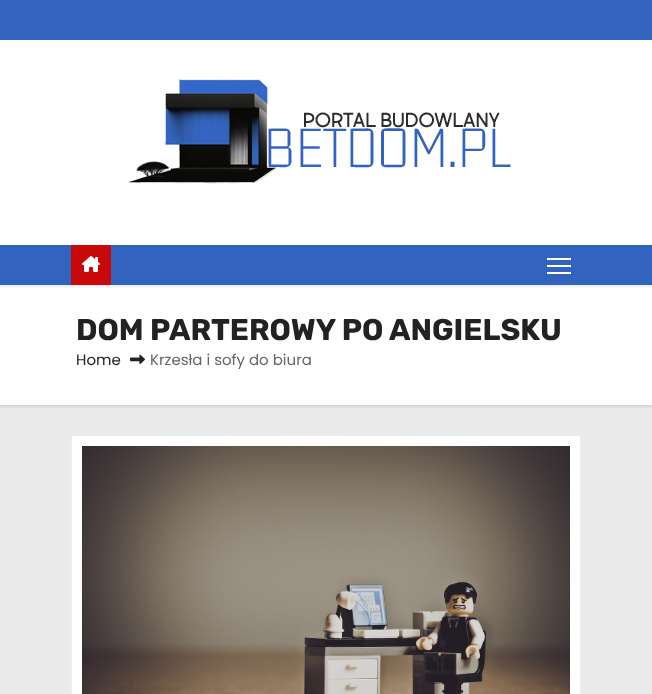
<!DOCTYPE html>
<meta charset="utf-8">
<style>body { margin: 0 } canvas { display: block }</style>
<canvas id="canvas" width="652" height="694"></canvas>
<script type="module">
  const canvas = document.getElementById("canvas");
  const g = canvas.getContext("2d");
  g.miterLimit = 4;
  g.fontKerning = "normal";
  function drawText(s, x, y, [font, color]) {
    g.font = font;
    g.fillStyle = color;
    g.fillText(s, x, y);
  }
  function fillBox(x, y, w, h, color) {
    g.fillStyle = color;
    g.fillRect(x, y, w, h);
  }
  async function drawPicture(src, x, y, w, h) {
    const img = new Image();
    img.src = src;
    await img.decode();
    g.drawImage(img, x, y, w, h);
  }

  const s1 = ["bold 30px Rubik", "#222222"];
  const s2 = ["15px Poppins", "#222222"];
  const s3 = ["15px Poppins", "#666666"];

  fillBox(0, 0, 652, 694, "#EAEAEA");
  fillBox(0, 0, 652, 40, "#3263BF");
  fillBox(0, 40, 652, 205, "#FFFFFF");
  await drawPicture("pic1.png", 127, 77, 384, 107);
  g.fillStyle = "rgba(0, 0, 0, 0.15)";
  g.filter = "blur(1.5px)";
  g.beginPath();
  g.rect(0, 286, 652, 120);
  g.fill();
  g.filter = "none";
  fillBox(0, 285, 652, 120, "#FFFFFF");
  g.fillStyle = "rgba(0, 0, 0, 0.08)";
  g.filter = "blur(1px)";
  g.beginPath();
  g.rect(0, 247, 652, 40);
  g.fill();
  g.filter = "none";
  fillBox(0, 245, 652, 40, "#3263BF");
  fillBox(71, 245, 40, 40, "#C70909");
  await drawPicture("pic2.png", 82, 256, 18, 16);
  fillBox(547, 258, 24, 2, "#FFFFFF");
  fillBox(547, 265, 24, 2, "#FFFFFF");
  fillBox(547, 272, 24, 2, "#FFFFFF");
  drawText("DOM PARTEROWY PO ANGIELSKU", 76, 340, s1);
  drawText("Home", 76, 365, s2);
  await drawPicture("pic3.png", 130, 354, 15, 10);
  drawText("Krzesła i sofy do biura", 150, 365, s3);
  g.fillStyle = "#FFFFFF";
  g.beginPath();
  g.rect(71.5, 435.5, 509, 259);
  g.fill();
  g.strokeStyle = "#EEEEEE";
  g.stroke();
  await drawPicture("pic4.png", 82, 446, 488, 248);
</script>
